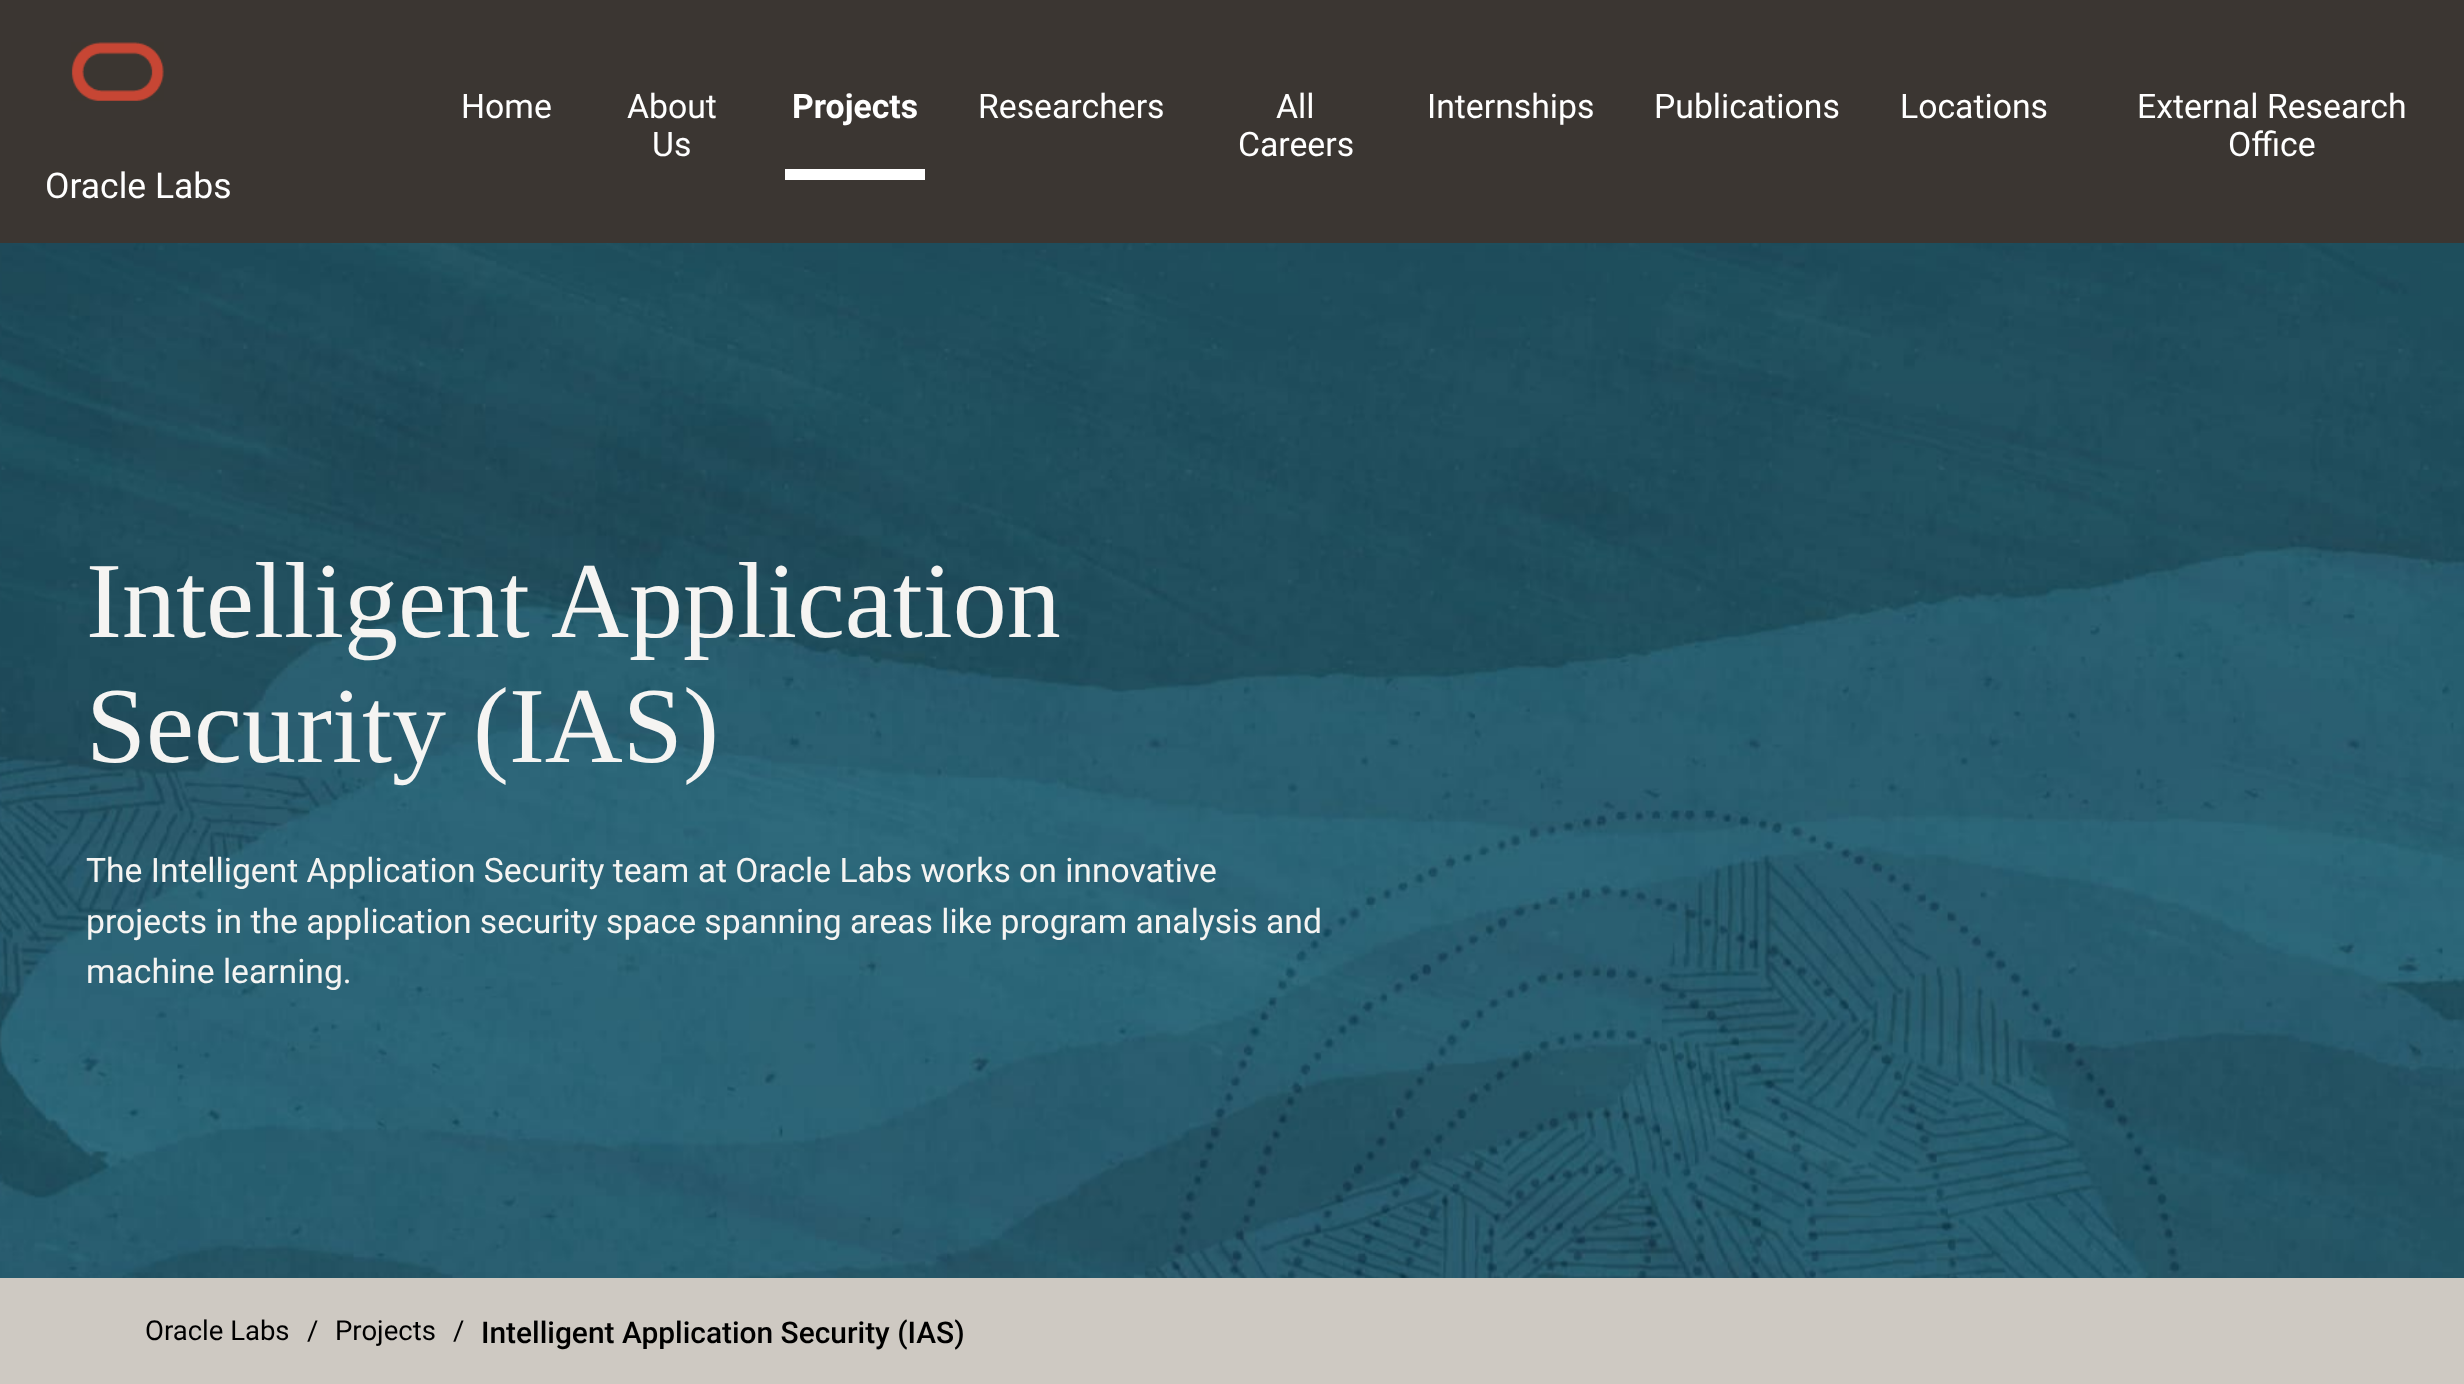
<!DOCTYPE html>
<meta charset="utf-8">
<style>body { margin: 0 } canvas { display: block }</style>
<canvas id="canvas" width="2464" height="1384"></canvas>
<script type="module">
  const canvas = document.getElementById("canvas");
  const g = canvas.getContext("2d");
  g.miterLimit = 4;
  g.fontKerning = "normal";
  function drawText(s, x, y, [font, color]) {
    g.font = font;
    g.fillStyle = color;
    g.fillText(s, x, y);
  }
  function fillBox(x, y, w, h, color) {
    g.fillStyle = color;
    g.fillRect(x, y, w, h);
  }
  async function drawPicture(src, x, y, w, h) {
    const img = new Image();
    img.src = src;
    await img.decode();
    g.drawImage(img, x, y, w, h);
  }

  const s1 = ["33.75px Roboto", "#FFFFFF"];
  const s2 = ["bold 33.75px Roboto", "#FFFFFF"];
  const s3 = ["35.5px Roboto", "#FFFFFF"];
  const s4 = ["108px Liberation Serif", "#F5F4F2"];
  const s5 = ["33.65px Roboto", "#F5F4F2"];
  const s6 = ["27.5px Roboto", "#000000"];
  const s7 = ["500 29.9px Roboto", "#000000"];

  fillBox(0, 0, 2464, 1384, "#3B3632");
  drawText("Home", 461, 118, s1);
  drawText("About", 627, 118, s1);
  drawText("Us", 652, 156, s1);
  drawText("Projects", 792, 118, s2);
  fillBox(785, 169, 140, 11, "#FFFFFF");
  drawText("Researchers", 978, 118, s1);
  drawText("All", 1276, 118, s1);
  drawText("Careers", 1238, 156, s1);
  drawText("Internships", 1427, 118, s1);
  drawText("Publications", 1654, 118, s1);
  drawText("Locations", 1900, 118, s1);
  drawText("External Research", 2137, 118, s1);
  drawText("Office", 2228, 156, s1);
  await drawPicture("pic1.png", 71, 42, 93, 59);
  drawText("Oracle Labs", 45, 198, s3);
  await drawPicture("pic2.png", 0, 243, 2464, 1035);
  drawText("Intelligent Application", 86, 637, s4);
  drawText("Security (IAS)", 86, 762, s4);
  drawText("The Intelligent Application Security team at Oracle Labs works on innovative", 86, 882, s5);
  drawText("projects in the application security space spanning areas like program analysis and", 86, 933, s5);
  drawText("machine learning.", 86, 983, s5);
  fillBox(0, 1278, 2464, 106, "#CEC9C2");
  drawText("Oracle Labs", 145, 1340, s6);
  drawText("/", 307, 1340, s6);
  drawText("Projects", 335, 1340, s6);
  drawText("/", 453, 1340, s6);
  drawText("Intelligent Application Security (IAS)", 481, 1343, s7);
</script>
